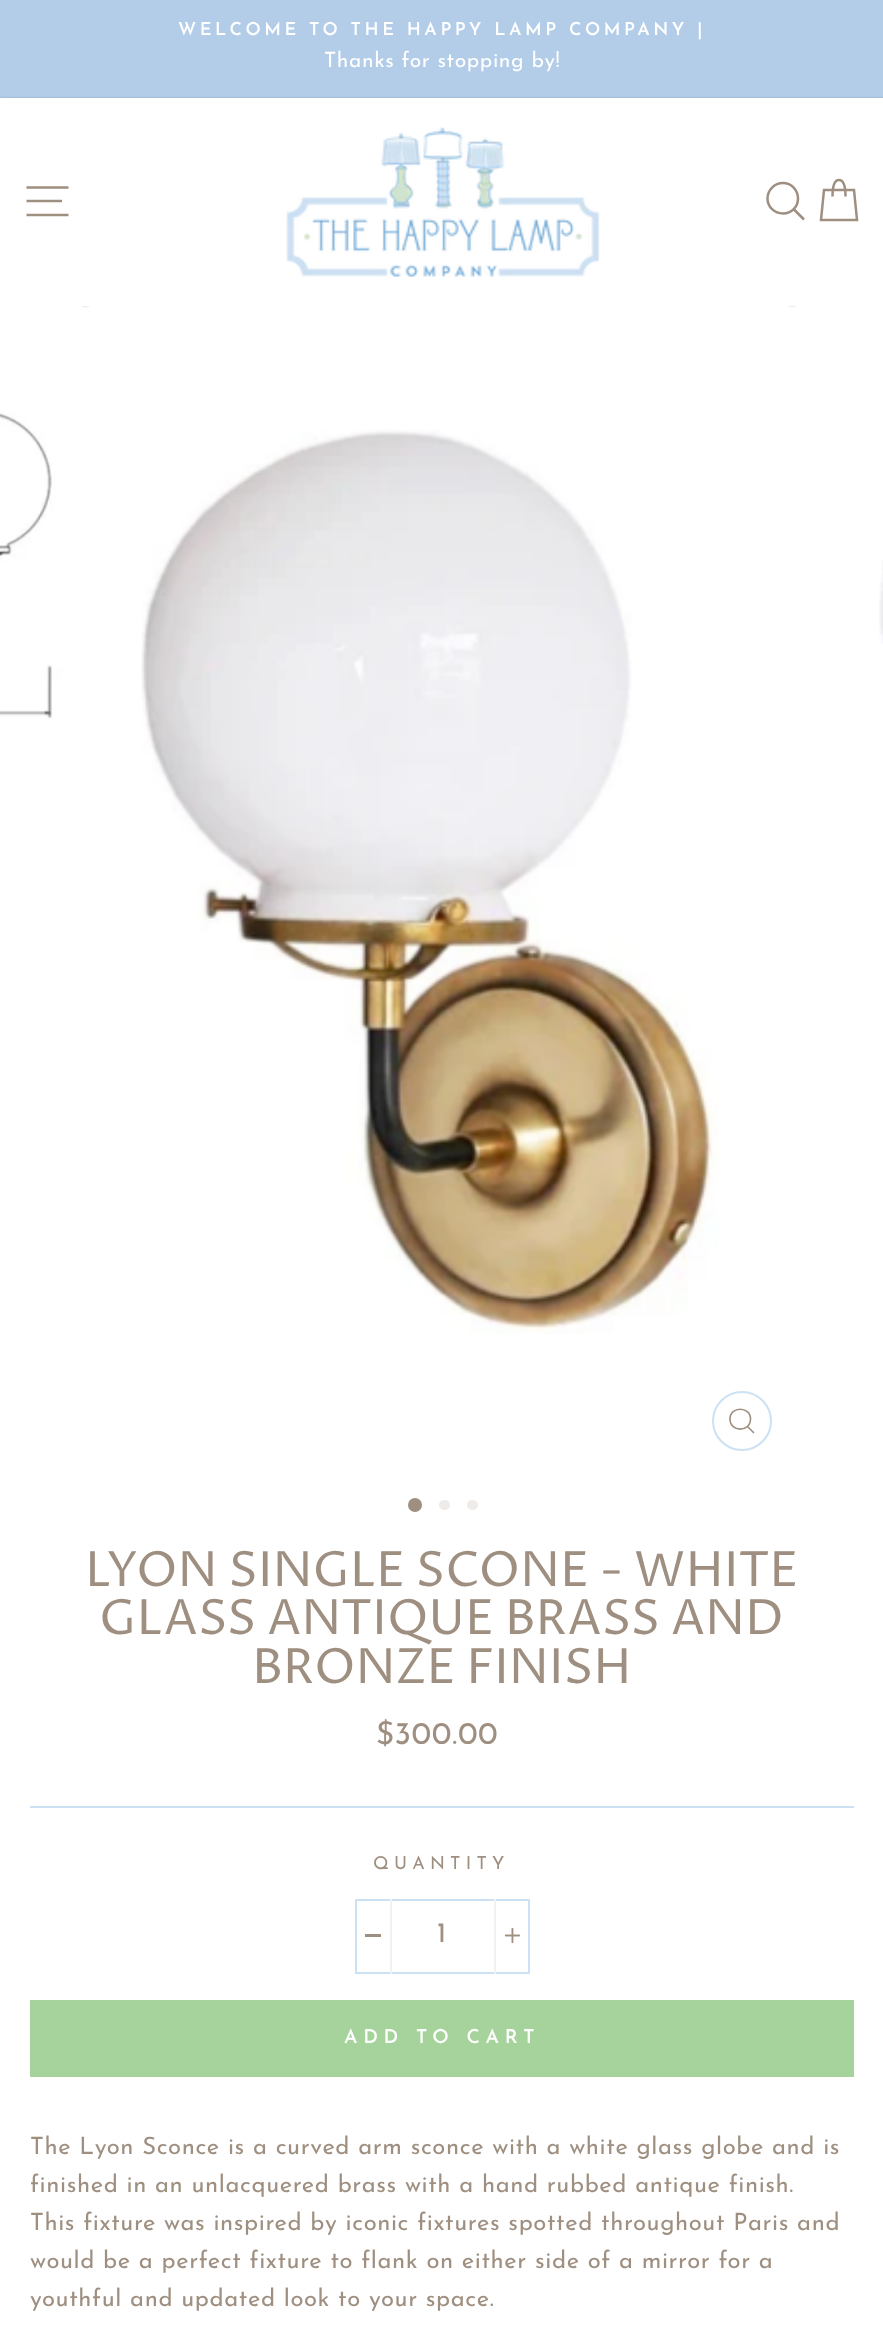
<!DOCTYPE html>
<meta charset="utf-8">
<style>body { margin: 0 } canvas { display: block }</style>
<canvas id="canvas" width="883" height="2330"></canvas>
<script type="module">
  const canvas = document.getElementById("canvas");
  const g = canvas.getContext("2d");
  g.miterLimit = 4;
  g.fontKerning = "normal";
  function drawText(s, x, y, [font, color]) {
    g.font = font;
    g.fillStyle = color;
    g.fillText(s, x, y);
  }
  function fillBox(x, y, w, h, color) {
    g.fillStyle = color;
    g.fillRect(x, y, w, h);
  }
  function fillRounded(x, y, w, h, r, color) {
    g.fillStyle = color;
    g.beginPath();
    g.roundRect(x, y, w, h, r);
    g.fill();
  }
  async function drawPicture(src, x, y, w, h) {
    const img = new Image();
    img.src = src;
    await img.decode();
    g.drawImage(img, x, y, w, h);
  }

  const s1 = ["600 17.85px Josefin Sans", "#FFFFFF"];
  const s2 = ["21px Josefin Sans", "#FFFFFF"];
  const s3 = ["48.5px Proza Libre", "#9E8F80"];
  const s4 = ["31.5px Josefin Sans", "#9E8F80"];
  const s5 = ["17.85px Josefin Sans", "#9E8F80"];
  const s6 = ["28px Josefin Sans", "#9E8F80"];
  const s7 = ["600 19.25px Josefin Sans", "#FFFFFF"];
  const s8 = ["23.8px Josefin Sans", "#9E8F80"];

  fillBox(0, 0, 883, 2330, "#FFFFFF");
  fillBox(0, 0, 883, 98, "#B3CDE9");
  g.letterSpacing = "3.55px";
  drawText("WELCOME TO THE HAPPY LAMP COMPANY |", 178, 35, s1);
  g.letterSpacing = "0.6px";
  drawText("Thanks for stopping by!", 324, 67, s2);
  g.save();
  g.beginPath();
  g.moveTo(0, 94);
  g.lineTo(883, 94);
  g.lineTo(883, 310);
  g.lineTo(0, 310);
  g.closePath();
  g.moveTo(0, 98);
  g.lineTo(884, 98);
  g.lineTo(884, 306);
  g.lineTo(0, 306);
  g.closePath();
  g.clip("evenodd");
  g.fillStyle = "rgba(0, 0, 0, 0.2)";
  g.filter = "blur(1px)";
  g.beginPath();
  g.rect(0, 98, 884, 208);
  g.fill();
  g.filter = "none";
  g.restore();
  g.beginPath();
  g.moveTo(26.5, 187.5);
  g.lineTo(68.5, 187.5);
  g.moveTo(26.5, 201);
  g.lineTo(62, 201);
  g.moveTo(26.5, 215);
  g.lineTo(68.5, 215);
  g.strokeStyle = "#9E8F80";
  g.lineWidth = 2.5;
  g.stroke();
  await drawPicture("pic1.png", 286, 127, 314, 150);
  g.beginPath();
  g.moveTo(798, 198.5);
  g.bezierCurveTo(798, 207, 791.5, 213.5, 783, 213.5);
  g.bezierCurveTo(774.5, 213.5, 767.5, 207, 767.5, 198.5);
  g.bezierCurveTo(767.5, 190, 774.5, 183, 783, 183);
  g.bezierCurveTo(791.5, 183, 798, 190, 798, 198.5);
  g.closePath();
  g.moveTo(804, 219.5);
  g.lineTo(794, 209.5);
  g.stroke();
  g.beginPath();
  g.moveTo(832.5, 196.5);
  g.bezierCurveTo(832.5, 183.5, 835.5, 180, 839, 180);
  g.bezierCurveTo(842.5, 180, 845.5, 183.5, 845.5, 196.5);
  g.moveTo(824, 190);
  g.lineTo(854, 190);
  g.lineTo(857, 220);
  g.lineTo(821, 220);
  g.closePath();
  g.stroke();
  fillBox(0, 306, 82, 2, "#FFFFFF");
  await drawPicture("pic2.png", 0, 306, 83, 413);
  fillBox(89, 306, 700, 2, "#FFFFFF");
  await drawPicture("pic3.png", 141, 429, 578, 905);
  g.beginPath();
  g.arc(742, 1421, 29, 0, Math.PI * 2);
  g.strokeStyle = "#CCE1F3";
  g.lineWidth = 2;
  g.stroke();
  g.beginPath();
  g.moveTo(750.5, 1419);
  g.bezierCurveTo(750.5, 1432.5, 730, 1432.5, 730, 1419);
  g.bezierCurveTo(730, 1406, 750.5, 1406, 750.5, 1419);
  g.closePath();
  g.moveTo(754, 1433);
  g.lineTo(747.5, 1426.5);
  g.strokeStyle = "#9E8F80";
  g.lineWidth = 1.6;
  g.stroke();
  fillBox(796, 306, 87, 2, "#FFFFFF");
  await drawPicture("pic4.png", 879, 560, 4, 84);
  g.fillStyle = "#9E8F80";
  g.beginPath();
  g.arc(415, 1505, 7, 0, Math.PI * 2);
  g.fill();
  fillRounded(439, 1500, 11, 10, 5, "#EEEBE8");
  fillRounded(467, 1500, 11, 10, 5, "#EEEBE8");
  g.letterSpacing = "0px";
  drawText("LYON SINGLE SCONE - WHITE", 85, 1586, s3);
  drawText("GLASS ANTIQUE BRASS AND", 99, 1634, s3);
  drawText("BRONZE FINISH", 252, 1683, s3);
  g.letterSpacing = "0.6px";
  drawText("$300.00", 376, 1744, s4);
  fillBox(30, 1806, 824, 2, "#CCE1F3");
  g.letterSpacing = "5.25px";
  drawText("QUANTITY", 373, 1869, s5);
  g.strokeStyle = "#CCE1F3";
  g.lineWidth = 2;
  g.strokeRect(356, 1900, 173, 73);
  fillBox(390, 1899, 2, 75, "#F2F2F2");
  fillBox(365, 1934, 16, 3, "#9E8F80");
  g.letterSpacing = "1px";
  drawText("1", 437, 1942, s6);
  fillBox(494, 1899, 2, 75, "#F2F2F2");
  await drawPicture("pic5.png", 504, 1927, 17, 17);
  fillBox(30, 2000, 824, 77, "#A5D39B");
  g.letterSpacing = "5.75px";
  drawText("ADD TO CART", 344, 2043, s7);
  g.letterSpacing = "0.6px";
  drawText("The Lyon Sconce is a curved arm sconce with a white glass globe and is", 30, 2154, s8);
  drawText("finished in an unlacquered brass with a hand rubbed antique finish.", 30, 2192, s8);
  drawText("This fixture was inspired by iconic fixtures spotted throughout Paris and", 30, 2230, s8);
  drawText("would be a perfect fixture to flank on either side of a mirror for a", 30, 2268, s8);
  drawText("youthful and updated look to your space.", 30, 2306, s8);
</script>
